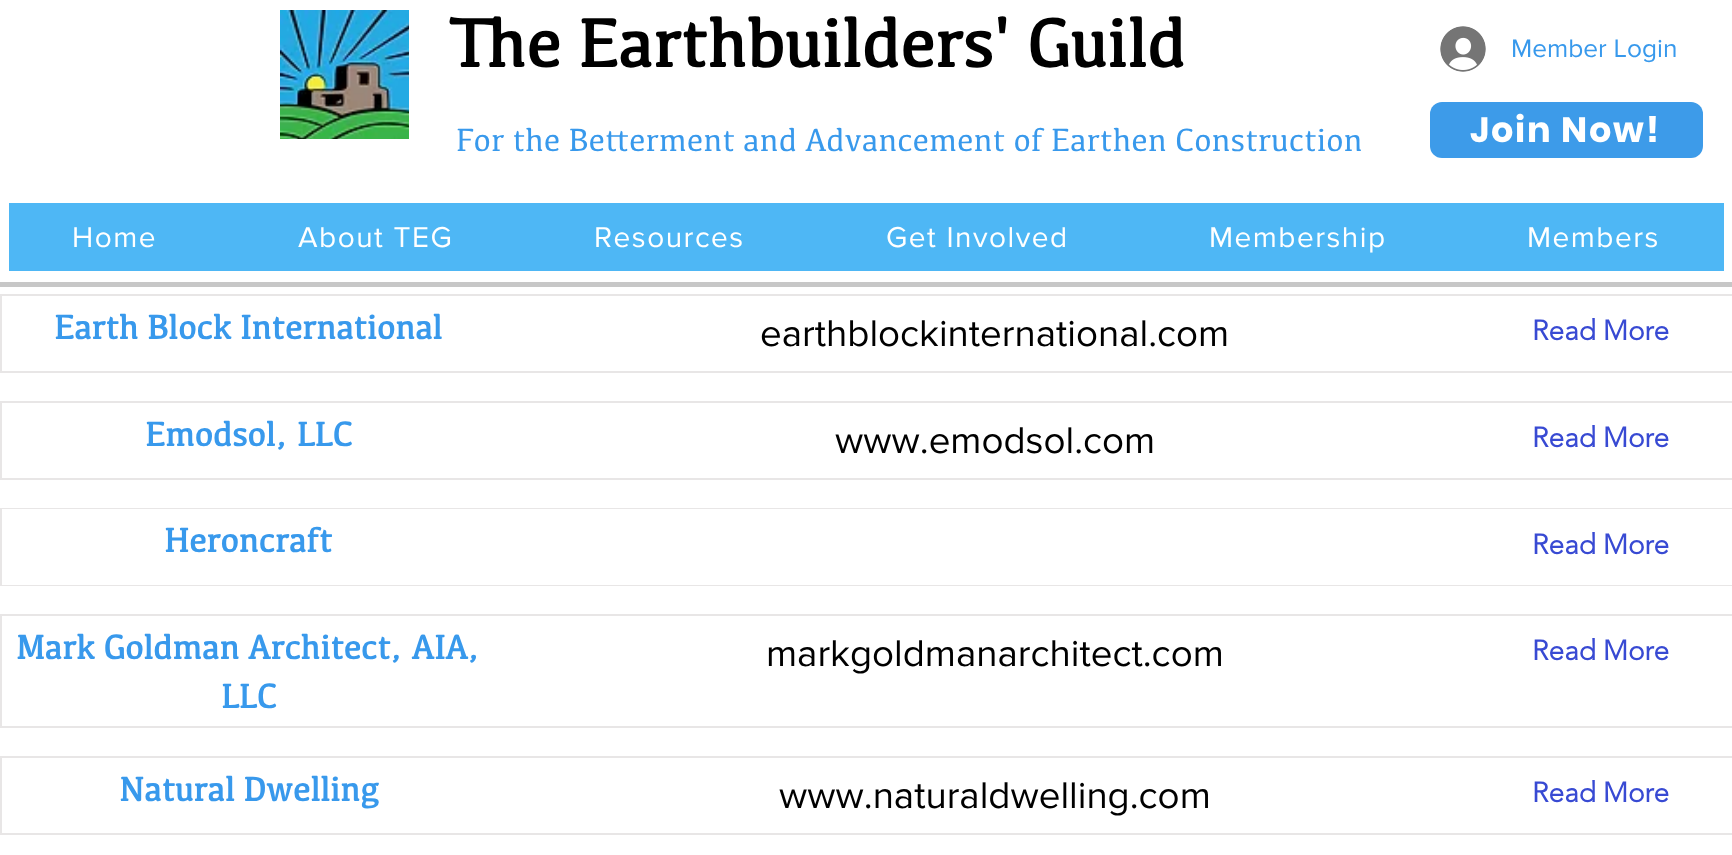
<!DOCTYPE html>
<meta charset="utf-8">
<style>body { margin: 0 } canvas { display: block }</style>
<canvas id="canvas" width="1732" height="855"></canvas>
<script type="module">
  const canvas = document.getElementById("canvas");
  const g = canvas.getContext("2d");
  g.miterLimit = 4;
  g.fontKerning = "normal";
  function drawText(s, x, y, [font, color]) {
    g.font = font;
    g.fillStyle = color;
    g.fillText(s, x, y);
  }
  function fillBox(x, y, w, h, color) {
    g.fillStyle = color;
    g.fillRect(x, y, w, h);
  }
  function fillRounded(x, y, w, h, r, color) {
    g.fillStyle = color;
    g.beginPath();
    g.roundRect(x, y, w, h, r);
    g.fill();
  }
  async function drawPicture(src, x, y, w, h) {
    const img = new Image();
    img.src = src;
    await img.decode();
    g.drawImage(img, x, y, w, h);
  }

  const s1 = ["bold 70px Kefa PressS", "#000000"];
  const s2 = ["26.25px 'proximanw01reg'", "#3899EC"];
  const s3 = ["33.25px Kefa PressS", "#3899EC"];
  const s4 = ["bold 35px Poppins", "#FFFFFF"];
  const s5 = ["29.75px 'proximanw01reg'", "#FFFFFF"];
  const s6 = ["bold 35px Kefa PressS", "#3899EC"];
  const s7 = ["38.5px 'proximanw01reg'", "#000000"];
  const s8 = ["bold 28px 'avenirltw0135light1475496'", "#384AD3"];

  fillBox(0, 0, 1732, 855, "#FFFFFF");
  await drawPicture("pic1.png", 280, 10, 129, 129);
  drawText("The Earthbuilders' Guild", 449, 67, s1);
  await drawPicture("pic2.png", 1440, 26, 46, 46);
  drawText("Member Login", 1511, 57, s2);
  drawText("For the Betterment and Advancement of Earthen Construction", 456, 151, s3);
  fillRounded(1430, 102, 273, 56, 12, "#3D9BE9");
  g.letterSpacing = "1.75px";
  drawText("Join Now!", 1470, 142, s4);
  fillBox(9, 203, 1715, 68, "#4EB7F5");
  g.letterSpacing = "1.5px";
  drawText("Home", 72, 247, s5);
  drawText("About TEG", 298, 247, s5);
  drawText("Resources", 594, 247, s5);
  drawText("Get Involved", 886, 247, s5);
  drawText("Membership", 1209, 247, s5);
  drawText("Members", 1527, 247, s5);
  fillBox(0, 282, 1732, 5, "#C7C7C7");
  g.strokeStyle = "#E8E6E6";
  g.lineWidth = 2;
  g.strokeRect(1, 295, 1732, 77);
  g.letterSpacing = "0px";
  drawText("Earth Block International", 54, 339, s6);
  drawText("earthblockinternational.com", 760, 346, s7);
  drawText("Read More", 1532, 340, s8);
  g.strokeRect(1, 402, 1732, 77);
  drawText("Emodsol, LLC", 145, 446, s6);
  drawText("www.emodsol.com", 835, 453, s7);
  drawText("Read More", 1532, 447, s8);
  g.strokeRect(1, 509, 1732, 76);
  fillBox(2, 509, 1730, 76, "#FFFFFF");
  drawText("Heroncraft", 164, 552, s6);
  drawText("Read More", 1532, 554, s8);
  g.strokeRect(1, 615, 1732, 112);
  drawText("Mark Goldman Architect, AIA,", 16, 659, s6);
  drawText("LLC", 221, 708, s6);
  drawText("markgoldmanarchitect.com", 766, 666, s7);
  drawText("Read More", 1532, 660, s8);
  g.strokeRect(1, 757, 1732, 77);
  drawText("Natural Dwelling", 119, 801, s6);
  drawText("www.naturaldwelling.com", 779, 808, s7);
  drawText("Read More", 1532, 802, s8);
</script>
